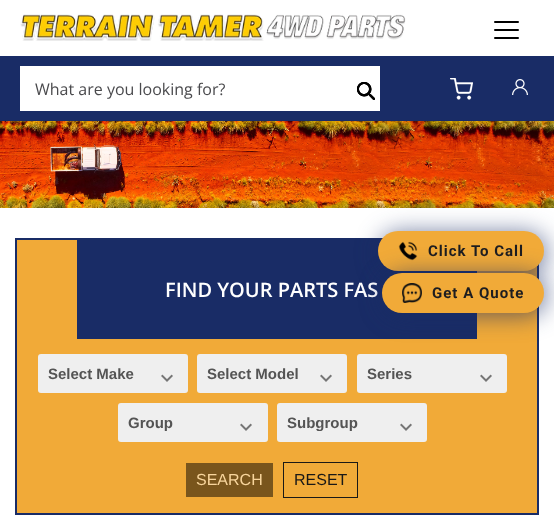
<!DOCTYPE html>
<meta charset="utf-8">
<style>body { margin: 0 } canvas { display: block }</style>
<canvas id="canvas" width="554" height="521"></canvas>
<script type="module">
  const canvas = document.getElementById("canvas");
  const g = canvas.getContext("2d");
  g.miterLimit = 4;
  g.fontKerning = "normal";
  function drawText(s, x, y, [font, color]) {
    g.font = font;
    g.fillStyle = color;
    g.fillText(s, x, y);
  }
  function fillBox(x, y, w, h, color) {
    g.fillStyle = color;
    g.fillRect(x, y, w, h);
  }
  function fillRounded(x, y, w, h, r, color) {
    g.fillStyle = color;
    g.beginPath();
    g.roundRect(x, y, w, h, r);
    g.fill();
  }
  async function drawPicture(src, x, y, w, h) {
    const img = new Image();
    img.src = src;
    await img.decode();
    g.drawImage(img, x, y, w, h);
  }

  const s1 = ["16px Open Sans", "#4A4A4D"];
  const s2 = ["bold 15px Roboto", "#1D1D20"];
  const s3 = ["600 20px Open Sans", "#FFFFFF"];
  const s4 = ["bold 15px Liberation Sans", "#545454"];
  const s5 = ["16px Liberation Sans", "#F8D59C"];
  const s6 = ["16px Liberation Sans", "#1A1917"];

  fillBox(0, 0, 554, 521, "#FFFFFF");
  fillBox(0, 56, 554, 65, "#192C66");
  await drawPicture("pic1.png", 20, 14, 386, 27);
  fillRounded(494, 21, 25, 2, 1, "#000000");
  fillRounded(494, 29, 25, 2, 1, "#000000");
  fillRounded(494, 37, 25, 2, 1, "#000000");
  fillBox(20, 66, 360, 45, "#FFFFFF");
  drawText("What are you looking for?", 35, 95, s1);
  await drawPicture("pic2.png", 357, 82, 18, 18);
  await drawPicture("pic3.png", 357, 82, 18, 18);
  await drawPicture("pic4.png", 450, 78, 23, 22);
  await drawPicture("pic5.png", 512, 79, 16, 16);
  await drawPicture("pic6.png", 0, 121, 554, 87);
  g.fillStyle = "#F1AA38";
  g.beginPath();
  g.rect(16, 239, 522, 275);
  g.fill();
  g.strokeStyle = "#192C66";
  g.lineWidth = 2;
  g.stroke();
  fillBox(77, 240, 400, 99, "#192C66");
  g.fillStyle = "rgba(25, 44, 102, 0.65)";
  g.filter = "blur(12.5px)";
  g.beginPath();
  g.roundRect(380, 233, 166, 40, 20);
  g.fill();
  g.filter = "none";
  fillRounded(378, 231, 166, 40, 20, "#F1AA38");
  await drawPicture("pic7.png", 398, 241, 20, 20);
  g.letterSpacing = "1px";
  drawText("Click To Call", 428, 256, s2);
  g.letterSpacing = "0px";
  drawText("FIND YOUR PARTS FAS", 165, 297, s3);
  fillRounded(38, 354, 150, 39, 3, "#EFEFEF");
  await drawPicture("pic8.png", 161, 374, 12, 8);
  drawText("Select Make", 48, 379, s4);
  fillRounded(197, 354, 150, 39, 3, "#EFEFEF");
  await drawPicture("pic8.png", 320, 374, 12, 8);
  drawText("Select Model", 207, 379, s4);
  fillRounded(357, 354, 150, 39, 3, "#EFEFEF");
  await drawPicture("pic8.png", 480, 374, 12, 8);
  drawText("Series", 367, 379, s4);
  fillRounded(118, 403, 150, 39, 3, "#EFEFEF");
  await drawPicture("pic8.png", 240, 423, 12, 8);
  g.save();
  g.beginPath();
  g.rect(128, 414, 130, 17);
  g.clip();
  drawText("Group", 128, 428, s4);
  g.restore();
  fillRounded(277, 403, 150, 39, 3, "#EFEFEF");
  await drawPicture("pic8.png", 400, 423, 12, 8);
  g.save();
  g.beginPath();
  g.rect(287, 414, 130, 17);
  g.clip();
  drawText("Subgroup", 287, 428, s4);
  g.restore();
  fillBox(186, 463, 87, 34, "#79551C");
  drawText("SEARCH", 196, 485, s5);
  g.strokeStyle = "#1A1917";
  g.lineWidth = 1;
  g.strokeRect(283.5, 462.5, 74, 35);
  drawText("RESET", 294, 485, s6);
  g.fillStyle = "rgba(25, 44, 102, 0.65)";
  g.filter = "blur(12.5px)";
  g.beginPath();
  g.roundRect(384, 275, 162, 40, 20);
  g.fill();
  g.filter = "none";
  fillRounded(382, 273, 162, 40, 20, "#F1AA38");
  await drawPicture("pic9.png", 402, 283, 20, 20);
  g.letterSpacing = "1px";
  drawText("Get A Quote", 432, 298, s2);
</script>
